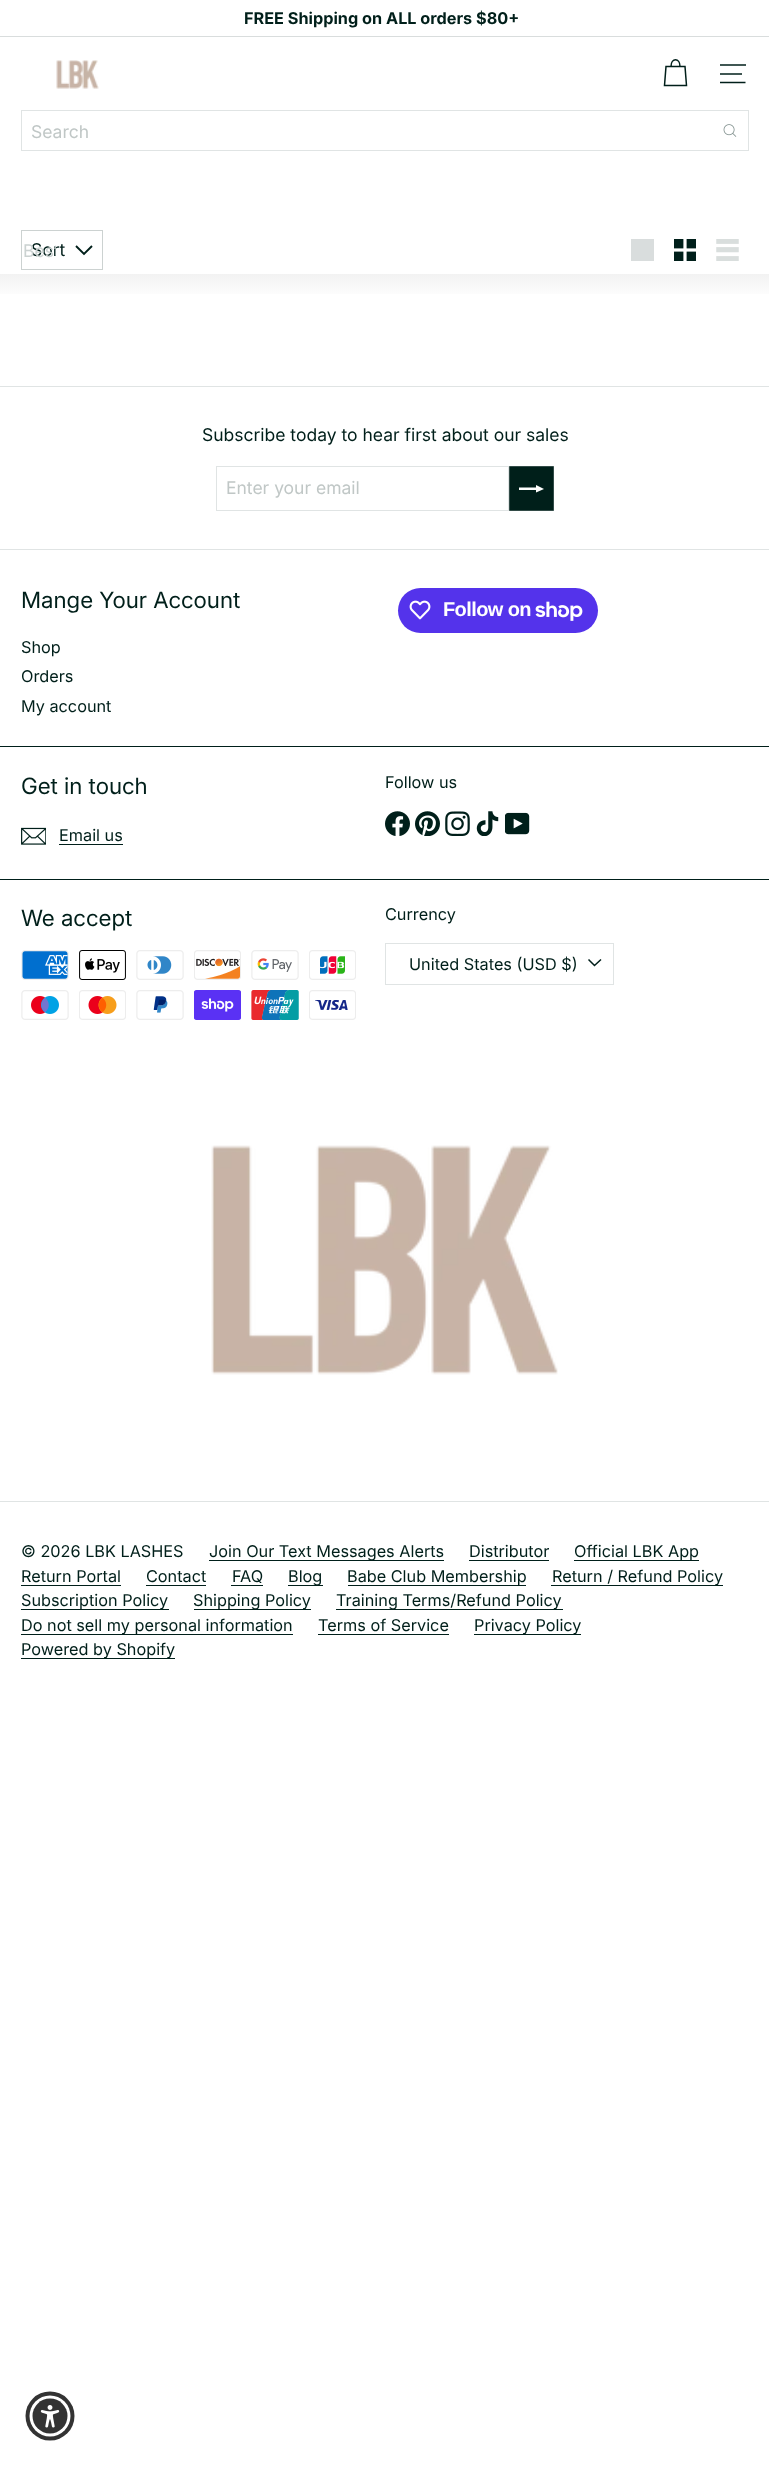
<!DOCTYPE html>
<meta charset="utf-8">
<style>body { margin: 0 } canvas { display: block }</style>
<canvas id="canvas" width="769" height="2466"></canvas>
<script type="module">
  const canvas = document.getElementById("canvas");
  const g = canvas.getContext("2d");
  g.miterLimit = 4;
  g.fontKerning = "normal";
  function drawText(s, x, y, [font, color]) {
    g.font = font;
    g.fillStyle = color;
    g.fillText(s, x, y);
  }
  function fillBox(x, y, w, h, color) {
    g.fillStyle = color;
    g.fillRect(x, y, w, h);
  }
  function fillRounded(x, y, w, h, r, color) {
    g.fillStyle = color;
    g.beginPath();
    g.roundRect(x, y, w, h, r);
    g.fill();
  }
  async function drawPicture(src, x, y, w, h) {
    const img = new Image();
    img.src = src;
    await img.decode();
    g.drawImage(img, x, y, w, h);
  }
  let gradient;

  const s1 = ["bold 16.25px Inter", "#001F1A"];
  const s2 = ["17.5px Inter", "#C0C7C6"];
  const s3 = ["17.5px Inter", "#001F1A"];
  const s4 = ["17.5px Inter", "#CBD2D1"];
  const s5 = ["22.5px 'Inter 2'", "#001F1A"];
  const s6 = ["16.25px Inter", "#001F1A"];
  const s7 = ["bold 20px Liberation Sans", "#FFFFFF"];

  fillBox(0, 0, 769, 2466, "#FFFFFF");
  drawText("FREE Shipping on ALL orders $80+", 244, 24, s1);
  fillBox(0, 36, 769, 1, "#D9DDDD");
  await drawPicture("pic1.png", 56, 60, 43, 29);
  g.beginPath();
  g.moveTo(671, 66.5);
  g.bezierCurveTo(671, 57.5, 680, 57.5, 680, 66.5);
  g.moveTo(666, 66.5);
  g.lineTo(685, 66.5);
  g.lineTo(686.5, 85.5);
  g.lineTo(664.5, 85.5);
  g.closePath();
  g.strokeStyle = "#001F1A";
  g.lineWidth = 1.5;
  g.stroke();
  fillBox(720, 64, 26, 2, "#405753");
  fillBox(720, 73, 22, 2, "#405753");
  g.beginPath();
  g.moveTo(720, 82.5);
  g.lineTo(745.5, 82.5);
  g.stroke();
  g.strokeStyle = "#E0E4E4";
  g.lineWidth = 1;
  g.strokeRect(21.5, 110.5, 727, 40);
  drawText("Search", 31, 138, s2);
  await drawPicture("pic2.png", 723, 124, 14, 13);
  g.strokeStyle = "#CCD2D1";
  g.strokeRect(21.5, 230.5, 81, 39);
  drawText("Sort", 31, 256, s3);
  g.beginPath();
  g.moveTo(76, 246);
  g.lineTo(84, 254);
  g.lineTo(92, 246);
  g.strokeStyle = "#001F1A";
  g.lineWidth = 1.9;
  g.stroke();
  g.save();
  g.beginPath();
  g.rect(23, 241, 33, 20);
  g.clip();
  drawText("Best", 23, 257, s4);
  g.restore();
  fillBox(631, 239, 23, 22, "#D9DDDD");
  await drawPicture("pic3.png", 674, 239, 22, 22);
  await drawPicture("pic4.png", 716, 239, 23, 22);
  gradient = g.createLinearGradient(385, 274, 385, 299);
  gradient.addColorStop(0, "#F2F2F2");
  gradient.addColorStop(1, "#FFFFFF");
  g.fillStyle = gradient;
  g.fillRect(0, 274, 769, 20);
  fillBox(0, 386, 769, 1, "#E0E4E4");
  drawText("Subscribe today to hear first about our sales", 202, 441, s3);
  g.strokeStyle = "#E0E4E4";
  g.lineWidth = 1;
  g.strokeRect(216.5, 466.5, 292, 44);
  drawText("Enter your email", 226, 494, s2);
  g.fillStyle = "#001F1A";
  g.beginPath();
  g.rect(509.5, 466.5, 44, 44);
  g.fill();
  g.strokeStyle = "#334C48";
  g.stroke();
  g.fillStyle = "#FFFFFF";
  g.beginPath();
  g.moveTo(519, 490);
  g.lineTo(519, 487.5);
  g.lineTo(536, 487.5);
  g.lineTo(536, 485);
  g.lineTo(544, 489);
  g.lineTo(536, 492.5);
  g.lineTo(536, 490);
  g.closePath();
  g.fill();
  fillBox(0, 549, 769, 1, "#E0E4E4");
  drawText("Mange Your Account", 21, 608, s5);
  drawText("Shop", 21, 653, s6);
  drawText("Orders", 21, 682, s6);
  drawText("My account", 21, 712, s6);
  fillRounded(398, 588, 200, 45, 22.5, "#5433EB");
  await drawPicture("pic5.png", 409, 600, 22, 20);
  g.letterSpacing = "-0.6px";
  drawText("Follow on", 443, 616, s7);
  await drawPicture("pic6.png", 535, 601, 48, 20);
  fillBox(0, 746, 769, 1, "#001F1A");
  g.letterSpacing = "0px";
  drawText("Get in touch", 21, 794, s5);
  await drawPicture("pic7.png", 21, 827, 25, 18);
  drawText("Email us", 59, 841, s6);
  fillBox(59, 844, 64, 1, "#001F1A");
  drawText("Follow us", 385, 788, s6);
  await drawPicture("pic8.png", 385, 811, 25, 25);
  await drawPicture("pic9.png", 415, 811, 25, 25);
  await drawPicture("pic10.png", 445, 811, 25, 25);
  await drawPicture("pic11.png", 476, 811, 23, 25);
  await drawPicture("pic12.png", 505, 812, 25, 23);
  fillBox(0, 879, 769, 1, "#001F1A");
  drawText("We accept", 21, 926, s5);
  await drawPicture("pic13.png", 21, 950, 48, 30);
  await drawPicture("pic14.png", 79, 950, 47, 30);
  await drawPicture("pic15.png", 136, 950, 48, 30);
  await drawPicture("pic16.png", 194, 950, 47, 30);
  await drawPicture("pic17.png", 251, 950, 48, 30);
  await drawPicture("pic18.png", 309, 950, 47, 30);
  await drawPicture("pic19.png", 21, 990, 48, 30);
  await drawPicture("pic20.png", 79, 990, 47, 30);
  await drawPicture("pic21.png", 136, 990, 48, 30);
  await drawPicture("pic22.png", 194, 990, 47, 30);
  await drawPicture("pic23.png", 251, 990, 48, 30);
  await drawPicture("pic24.png", 309, 990, 47, 30);
  drawText("Currency", 385, 920, s6);
  g.strokeStyle = "#E0E4E4";
  g.strokeRect(385.5, 943.5, 228, 41);
  drawText("United States (USD $)", 409, 970, s6);
  g.beginPath();
  g.moveTo(588.5, 959.5);
  g.lineTo(594.5, 965.5);
  g.lineTo(601, 959.5);
  g.strokeStyle = "#001F1A";
  g.lineWidth = 1.5;
  g.stroke();
  await drawPicture("pic25.png", 211, 1145, 347, 230);
  fillBox(0, 1501, 769, 1, "#E0E4E4");
  drawText("© 2026 LBK LASHES", 21, 1557, s6);
  fillBox(209, 1560, 235, 1, "#001F1A");
  drawText("Join Our Text Messages Alerts", 209, 1557, s6);
  drawText("Distributor", 469, 1557, s6);
  fillBox(469, 1560, 80, 1, "#001F1A");
  fillBox(574, 1560, 125, 1, "#001F1A");
  drawText("Official LBK App", 574, 1557, s6);
  drawText("Return Portal", 21, 1582, s6);
  fillBox(21, 1585, 100, 1, "#001F1A");
  drawText("Contact", 146, 1582, s6);
  fillBox(146, 1585, 60, 1, "#001F1A");
  drawText("FAQ", 232, 1582, s6);
  fillBox(231, 1585, 32, 1, "#001F1A");
  fillBox(288, 1585, 35, 1, "#001F1A");
  drawText("Blog", 288, 1582, s6);
  fillBox(348, 1585, 178, 1, "#001F1A");
  drawText("Babe Club Membership", 347, 1582, s6);
  fillBox(551, 1585, 172, 1, "#001F1A");
  drawText("Return / Refund Policy", 552, 1582, s6);
  fillBox(21, 1609, 148, 1, "#001F1A");
  drawText("Subscription Policy", 21, 1606, s6);
  fillBox(194, 1609, 117, 1, "#001F1A");
  drawText("Shipping Policy", 193, 1606, s6);
  fillBox(336, 1609, 227, 1, "#001F1A");
  drawText("Training Terms/Refund Policy", 336, 1606, s6);
  fillBox(21, 1634, 272, 1, "#001F1A");
  drawText("Do not sell my personal information", 21, 1631, s6);
  drawText("Terms of Service", 318, 1631, s6);
  fillBox(318, 1634, 131, 1, "#001F1A");
  fillBox(474, 1634, 107, 1, "#001F1A");
  drawText("Privacy Policy", 474, 1631, s6);
  fillBox(21, 1658, 154, 1, "#001F1A");
  drawText("Powered by Shopify", 21, 1655, s6);
  g.fillStyle = "#333333";
  g.beginPath();
  g.arc(50, 2416, 24.5, 0, Math.PI * 2);
  g.fill();
  g.fillStyle = "#FFFFFF";
  g.beginPath();
  g.arc(50, 2416, 20.5, 0, Math.PI * 2);
  g.fill();
  g.fillStyle = "#333333";
  g.beginPath();
  g.arc(50, 2416, 17.5, 0, Math.PI * 2);
  g.fill();
  await drawPicture("pic26.png", 40, 2405, 20, 23);
</script>
